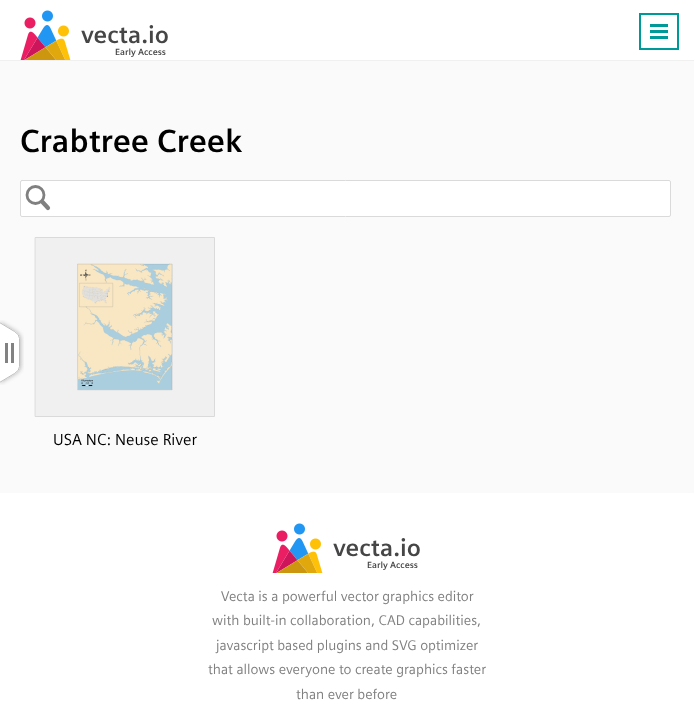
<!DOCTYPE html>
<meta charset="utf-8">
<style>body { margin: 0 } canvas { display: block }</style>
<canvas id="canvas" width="694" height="704"></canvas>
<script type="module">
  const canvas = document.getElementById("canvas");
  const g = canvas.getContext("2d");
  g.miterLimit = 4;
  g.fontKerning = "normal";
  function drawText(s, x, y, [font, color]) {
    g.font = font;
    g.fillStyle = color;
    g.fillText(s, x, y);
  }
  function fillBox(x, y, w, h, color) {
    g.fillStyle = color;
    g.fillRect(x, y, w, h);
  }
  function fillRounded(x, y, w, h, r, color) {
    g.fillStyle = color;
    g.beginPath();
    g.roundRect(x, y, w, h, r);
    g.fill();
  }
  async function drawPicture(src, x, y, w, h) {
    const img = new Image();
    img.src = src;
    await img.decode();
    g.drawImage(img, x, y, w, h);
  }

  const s1 = ["bold 24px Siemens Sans", "#464646"];
  const s2 = ["bold 9px Siemens Sans", "#464646"];
  const s3 = ["bold 32px Siemens Sans", "#000000"];
  const s4 = ["16px Siemens Sans", "#000000"];
  const s5 = ["14px Siemens Sans", "#808080"];

  fillBox(0, 0, 694, 704, "#FAFAFA");
  fillBox(0, 0, 694, 60, "#FFFFFF");
  fillBox(0, 60, 694, 1, "#F0F0F0");
  await drawPicture("pic1.png", 20, 10, 51, 50);
  drawText("vecta.io", 81, 43, s1);
  drawText("Early Access", 115, 55, s2);
  g.strokeStyle = "#009999";
  g.lineWidth = 2;
  g.strokeRect(640, 14, 38, 35);
  fillBox(650, 24, 18, 3, "#009999");
  fillBox(650, 30, 18, 3, "#009999");
  fillBox(650, 36, 18, 3, "#009999");
  drawText("Crabtree Creek", 20, 152, s3);
  await drawPicture("pic2.png", 0, 320, 24, 65);
  fillRounded(20, 180, 651, 37, 2, "#FFFFFF");
  g.beginPath();
  g.arc(35.5, 195, 8.5, 0, Math.PI * 2);
  g.strokeStyle = "#808080";
  g.lineWidth = 2.8;
  g.stroke();
  g.beginPath();
  g.moveTo(48, 208);
  g.lineTo(42.5, 202);
  g.lineWidth = 4.2;
  g.lineCap = "round";
  g.stroke();
  g.beginPath();
  g.roundRect(20.5, 180.5, 650, 36, 1.5);
  g.strokeStyle = "#DADADA";
  g.lineWidth = 1;
  g.stroke();
  g.fillStyle = "#F0F0F0";
  g.beginPath();
  g.rect(35.5, 237.5, 179, 179);
  g.fill();
  g.stroke();
  await drawPicture("pic3.png", 77, 263, 96, 128);
  drawText("USA NC: Neuse River", 53, 445, s4);
  fillBox(0, 493, 694, 211, "#FFFFFF");
  await drawPicture("pic1.png", 272, 523, 51, 50);
  drawText("vecta.io", 333, 556, s1);
  drawText("Early Access", 367, 568, s2);
  drawText("Vecta is a powerful vector graphics editor", 221, 601, s5);
  drawText("with built-in collaboration, CAD capabilities,", 212, 625, s5);
  drawText("javascript based plugins and SVG optimizer", 216, 650, s5);
  drawText("that allows everyone to create graphics faster", 208, 674, s5);
  drawText("than ever before", 296, 699, s5);
</script>
